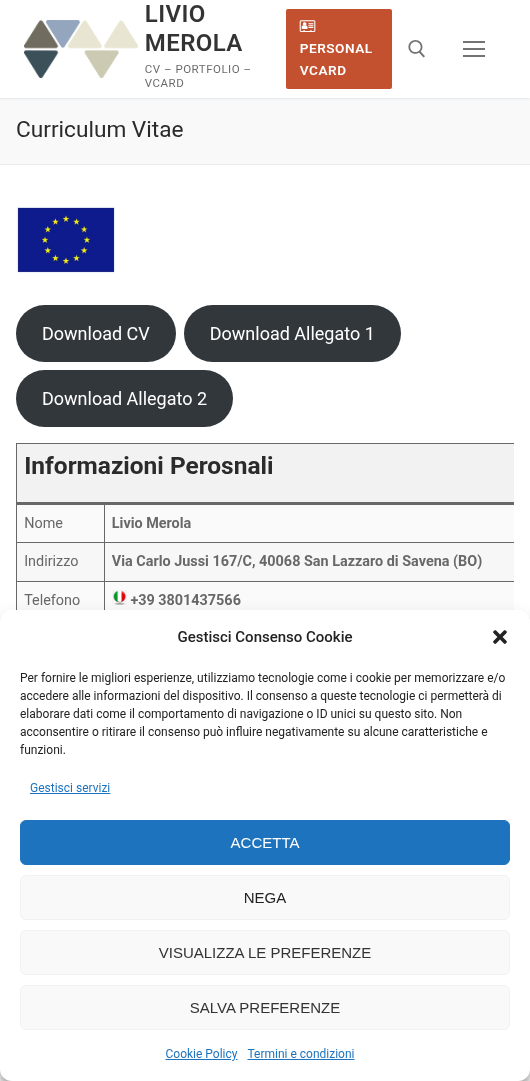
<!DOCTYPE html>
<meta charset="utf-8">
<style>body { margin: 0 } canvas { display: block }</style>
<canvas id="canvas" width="530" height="1081"></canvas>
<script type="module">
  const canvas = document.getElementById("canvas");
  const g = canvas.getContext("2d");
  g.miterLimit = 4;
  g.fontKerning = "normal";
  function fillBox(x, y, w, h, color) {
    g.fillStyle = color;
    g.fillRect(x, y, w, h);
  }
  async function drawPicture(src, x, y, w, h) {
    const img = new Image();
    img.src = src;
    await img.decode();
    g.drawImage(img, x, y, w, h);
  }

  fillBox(0, 0, 530, 1081, "#FFFFFF");
  await drawPicture("pic1.png", 0, 5, 530, 1076);
</script>
